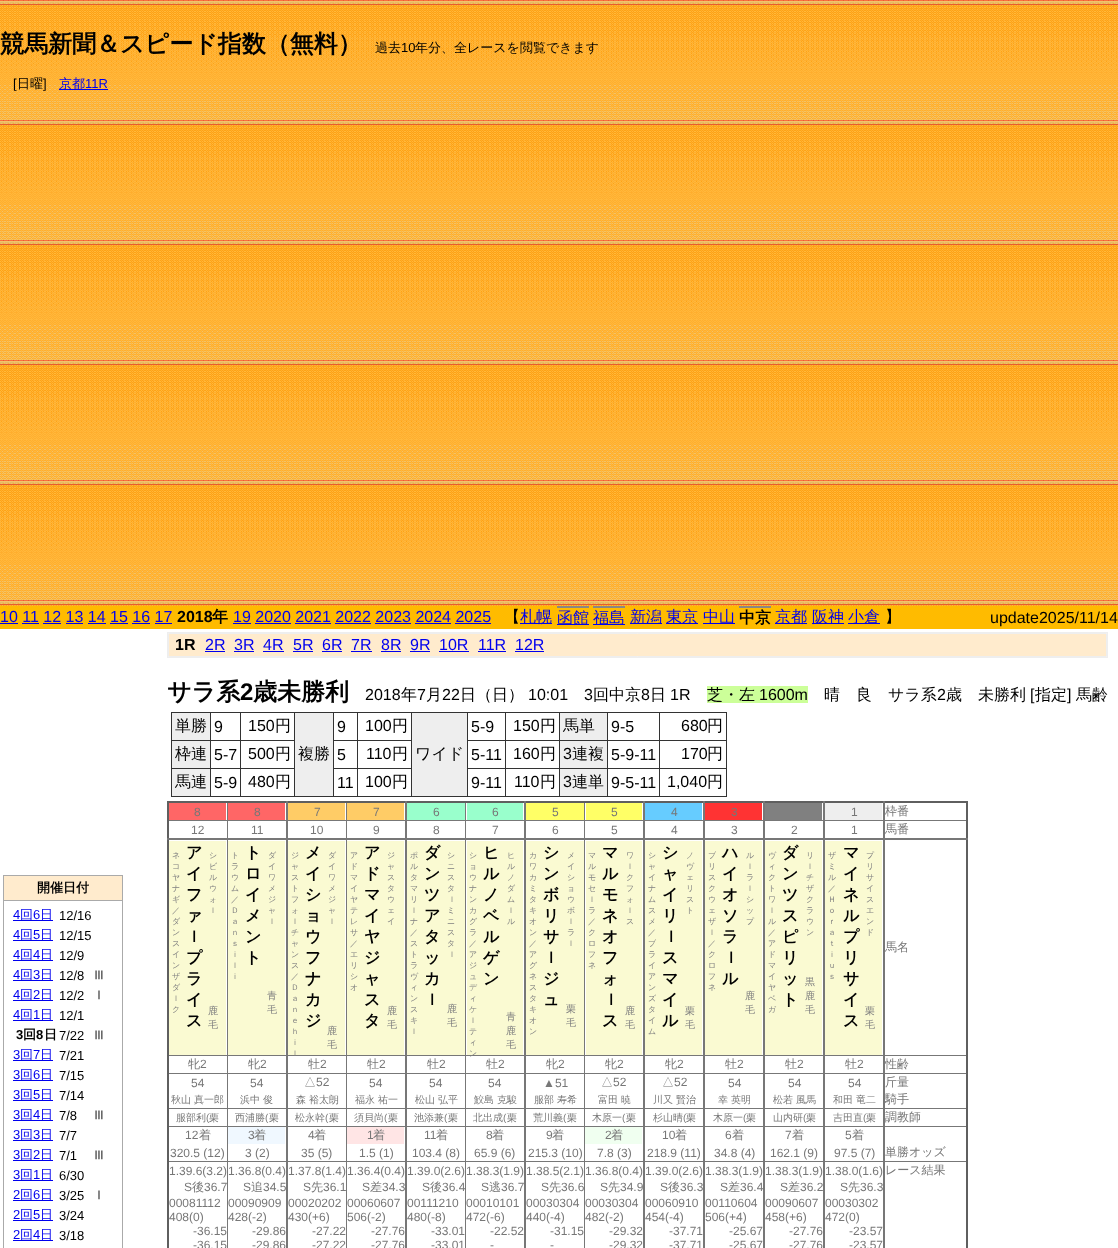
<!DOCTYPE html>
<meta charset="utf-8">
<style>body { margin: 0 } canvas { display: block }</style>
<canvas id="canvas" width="1118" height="1248"></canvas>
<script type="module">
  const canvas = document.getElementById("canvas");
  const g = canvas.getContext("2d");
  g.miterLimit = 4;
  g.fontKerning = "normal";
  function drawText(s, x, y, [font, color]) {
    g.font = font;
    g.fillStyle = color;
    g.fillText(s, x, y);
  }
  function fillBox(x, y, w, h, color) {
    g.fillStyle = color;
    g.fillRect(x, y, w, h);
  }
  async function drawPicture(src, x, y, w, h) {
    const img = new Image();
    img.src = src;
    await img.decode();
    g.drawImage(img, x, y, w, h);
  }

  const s1 = ["bold 24px WenQuanYi Zen Hei", "#000000"];
  const s2 = ["500 13px WenQuanYi Zen Hei", "#000000"];
  const s3 = ["13px Liberation Sans", "#000000"];
  const s4 = ["500 13px WenQuanYi Zen Hei", "#0000EE"];
  const s5 = ["13px Liberation Sans", "#0000EE"];
  const s6 = ["16px Liberation Sans", "#0000EE"];
  const s7 = ["bold 16px Liberation Sans", "#000000"];
  const s8 = ["bold 16px WenQuanYi Zen Hei", "#000000"];
  const s9 = ["500 16px WenQuanYi Zen Hei", "#000000"];
  const s10 = ["500 16px WenQuanYi Zen Hei", "#0000EE"];
  const s11 = ["16px Liberation Sans", "#000000"];
  const s12 = ["bold 13px WenQuanYi Zen Hei", "#000000"];
  const s13 = ["500 12px WenQuanYi Zen Hei", "#000000"];
  const s14 = ["bold 13px Liberation Sans", "#000000"];
  const s15 = ["bold 24px Liberation Sans", "#000000"];
  const s16 = ["12px Liberation Sans", "#777777"];
  const s17 = ["500 12px WenQuanYi Zen Hei", "#777777"];
  const s18 = ["500 8px WenQuanYi Zen Hei", "#808080"];
  const s19 = ["500 10px WenQuanYi Zen Hei", "#808080"];
  const s20 = ["500 10px WenQuanYi Zen Hei", "#777777"];
  const s21 = ["10px Liberation Sans", "#777777"];

  fillBox(0, 0, 1118, 1248, "#FFFFFF");
  await drawPicture("pic1.png", 0, 0, 1118, 606);
  drawText("競馬新聞＆スピード指数（無料）", 0, 52, s1);
  drawText("過去", 375, 52, s2);
  drawText("10", 401, 52, s3);
  drawText("年分、全レースを閲覧できます", 415, 52, s2);
  drawText("[", 13, 88, s3);
  drawText("日曜", 17, 88, s2);
  drawText("]", 43, 88, s3);
  fillBox(59, 89, 49, 1, "#0000EE");
  drawText("京都", 59, 88, s4);
  drawText("11R", 85, 88, s5);
  fillBox(0, 606, 1118, 23, "#FFBB00");
  drawText("10 11 12 13 14 15 16 17", 0, 622, s6);
  fillBox(0, 623, 18, 1, "#0000EE");
  drawText("2018", 177, 622, s7);
  drawText("年", 212, 622, s8);
  drawText("19 2020 2021 2022 2023 2024 2025", 233, 622, s6);
  fillBox(233, 623, 18, 1, "#0000EE");
  fillBox(22, 623, 17, 1, "#0000EE");
  fillBox(43, 623, 18, 1, "#0000EE");
  fillBox(66, 623, 17, 1, "#0000EE");
  fillBox(88, 623, 18, 1, "#0000EE");
  fillBox(110, 623, 18, 1, "#0000EE");
  fillBox(132, 623, 18, 1, "#0000EE");
  fillBox(155, 623, 17, 1, "#0000EE");
  fillBox(255, 623, 36, 1, "#0000EE");
  fillBox(295, 623, 36, 1, "#0000EE");
  fillBox(335, 623, 36, 1, "#0000EE");
  fillBox(375, 623, 36, 1, "#0000EE");
  fillBox(415, 623, 36, 1, "#0000EE");
  fillBox(455, 623, 36, 1, "#0000EE");
  drawText("【", 504, 622, s9);
  fillBox(520, 623, 32, 1, "#0000EE");
  drawText("札幌", 520, 622, s10);
  fillBox(557, 606, 32, 2, "#888888");
  fillBox(557, 624, 32, 1, "#0000EE");
  drawText("函館", 557, 623, s10);
  fillBox(593, 606, 32, 2, "#888888");
  fillBox(593, 624, 32, 1, "#0000EE");
  drawText("福島", 593, 623, s10);
  fillBox(630, 623, 32, 1, "#0000EE");
  drawText("新潟", 630, 622, s10);
  fillBox(666, 623, 32, 1, "#0000EE");
  drawText("東京", 666, 622, s10);
  fillBox(703, 623, 32, 1, "#0000EE");
  drawText("中山", 703, 622, s10);
  fillBox(739, 606, 32, 2, "#888888");
  drawText("中京", 739, 623, s8);
  fillBox(775, 623, 32, 1, "#0000EE");
  drawText("京都", 775, 622, s10);
  fillBox(812, 623, 32, 1, "#0000EE");
  drawText("阪神", 812, 622, s10);
  fillBox(848, 623, 32, 1, "#0000EE");
  drawText("小倉", 848, 622, s10);
  drawText("】", 885, 622, s9);
  drawText("update2025/11/14", 990, 623, s11);
  fillBox(3, 875, 120, 373, "#AAAAAA");
  fillBox(4, 876, 118, 24, "#FFEBCD");
  drawText("開催日付", 37, 892, s12);
  fillBox(4, 901, 118, 347, "#FFFFFF");
  drawText("4", 13, 919, s5);
  fillBox(13, 920, 40, 1, "#0000EE");
  drawText("回", 20, 919, s4);
  drawText("6", 33, 919, s5);
  drawText("日", 40, 919, s4);
  drawText("12/16", 59, 920, s3);
  drawText("4", 13, 939, s5);
  fillBox(13, 940, 40, 1, "#0000EE");
  drawText("回", 20, 939, s4);
  drawText("5", 33, 939, s5);
  drawText("日", 40, 939, s4);
  drawText("12/15", 59, 940, s3);
  drawText("4", 13, 959, s5);
  fillBox(13, 960, 40, 1, "#0000EE");
  drawText("回", 20, 959, s4);
  drawText("4", 33, 959, s5);
  drawText("日", 40, 959, s4);
  drawText("12/9", 59, 960, s3);
  drawText("4", 13, 979, s5);
  fillBox(13, 980, 40, 1, "#0000EE");
  drawText("回", 20, 979, s4);
  drawText("3", 33, 979, s5);
  drawText("日", 40, 979, s4);
  drawText("12/8", 59, 980, s3);
  drawText("Ⅲ", 93, 979, s13);
  drawText("4", 13, 999, s5);
  fillBox(13, 1000, 40, 1, "#0000EE");
  drawText("回", 20, 999, s4);
  drawText("2", 33, 999, s5);
  drawText("日", 40, 999, s4);
  drawText("12/2", 59, 1000, s3);
  drawText("Ⅰ", 93, 999, s13);
  drawText("4", 13, 1019, s5);
  fillBox(13, 1020, 40, 1, "#0000EE");
  drawText("回", 20, 1019, s4);
  drawText("1", 33, 1019, s5);
  drawText("日", 40, 1019, s4);
  drawText("12/1", 59, 1020, s3);
  drawText("3", 16, 1039, s14);
  drawText("回", 23, 1039, s12);
  drawText("8", 36, 1039, s14);
  drawText("日", 44, 1039, s12);
  drawText("7/22", 59, 1040, s3);
  drawText("Ⅲ", 93, 1039, s13);
  drawText("3", 13, 1059, s5);
  fillBox(13, 1060, 40, 1, "#0000EE");
  drawText("回", 20, 1059, s4);
  drawText("7", 33, 1059, s5);
  drawText("日", 40, 1059, s4);
  drawText("7/21", 59, 1060, s3);
  drawText("3", 13, 1079, s5);
  fillBox(13, 1080, 40, 1, "#0000EE");
  drawText("回", 20, 1079, s4);
  drawText("6", 33, 1079, s5);
  drawText("日", 40, 1079, s4);
  drawText("7/15", 59, 1080, s3);
  drawText("3", 13, 1099, s5);
  fillBox(13, 1100, 40, 1, "#0000EE");
  drawText("回", 20, 1099, s4);
  drawText("5", 33, 1099, s5);
  drawText("日", 40, 1099, s4);
  drawText("7/14", 59, 1100, s3);
  drawText("3", 13, 1119, s5);
  fillBox(13, 1120, 40, 1, "#0000EE");
  drawText("回", 20, 1119, s4);
  drawText("4", 33, 1119, s5);
  drawText("日", 40, 1119, s4);
  drawText("7/8", 59, 1120, s3);
  drawText("Ⅲ", 93, 1119, s13);
  drawText("3", 13, 1139, s5);
  fillBox(13, 1140, 40, 1, "#0000EE");
  drawText("回", 20, 1139, s4);
  drawText("3", 33, 1139, s5);
  drawText("日", 40, 1139, s4);
  drawText("7/7", 59, 1140, s3);
  drawText("3", 13, 1159, s5);
  fillBox(13, 1160, 40, 1, "#0000EE");
  drawText("回", 20, 1159, s4);
  drawText("2", 33, 1159, s5);
  drawText("日", 40, 1159, s4);
  drawText("7/1", 59, 1160, s3);
  drawText("Ⅲ", 93, 1159, s13);
  drawText("3", 13, 1179, s5);
  fillBox(13, 1180, 40, 1, "#0000EE");
  drawText("回", 20, 1179, s4);
  drawText("1", 33, 1179, s5);
  drawText("日", 40, 1179, s4);
  drawText("6/30", 59, 1180, s3);
  drawText("2", 13, 1199, s5);
  fillBox(13, 1200, 40, 1, "#0000EE");
  drawText("回", 20, 1199, s4);
  drawText("6", 33, 1199, s5);
  drawText("日", 40, 1199, s4);
  drawText("3/25", 59, 1200, s3);
  drawText("Ⅰ", 93, 1199, s13);
  drawText("2", 13, 1219, s5);
  fillBox(13, 1220, 40, 1, "#0000EE");
  drawText("回", 20, 1219, s4);
  drawText("5", 33, 1219, s5);
  drawText("日", 40, 1219, s4);
  drawText("3/24", 59, 1220, s3);
  drawText("2", 13, 1239, s5);
  fillBox(13, 1240, 40, 1, "#0000EE");
  drawText("回", 20, 1239, s4);
  drawText("4", 33, 1239, s5);
  drawText("日", 40, 1239, s4);
  drawText("3/18", 59, 1240, s3);
  g.strokeStyle = "#EEEEEE";
  g.strokeRect(167.5, 632.5, 940, 25);
  g.fillStyle = "#FFEBCD";
  g.beginPath();
  g.rect(168.5, 633.5, 938, 23);
  g.fill();
  g.stroke();
  drawText("1R", 175, 650, s7);
  drawText("2R", 205, 650, s6);
  fillBox(205, 651, 20, 1, "#0000EE");
  drawText("3R", 234, 650, s6);
  fillBox(234, 651, 20, 1, "#0000EE");
  drawText("4R", 263, 650, s6);
  fillBox(263, 651, 21, 1, "#0000EE");
  drawText("5R", 293, 650, s6);
  fillBox(293, 651, 20, 1, "#0000EE");
  drawText("6R", 322, 650, s6);
  fillBox(322, 651, 20, 1, "#0000EE");
  drawText("7R", 351, 650, s6);
  fillBox(351, 651, 21, 1, "#0000EE");
  drawText("8R", 381, 650, s6);
  fillBox(381, 651, 20, 1, "#0000EE");
  drawText("9R", 410, 650, s6);
  fillBox(410, 651, 20, 1, "#0000EE");
  drawText("10R", 439, 650, s6);
  fillBox(439, 651, 30, 1, "#0000EE");
  drawText("11R", 478, 650, s6);
  fillBox(478, 651, 28, 1, "#0000EE");
  drawText("12R", 515, 650, s6);
  fillBox(515, 651, 29, 1, "#0000EE");
  drawText("サラ系", 167, 700, s1);
  drawText("2", 240, 700, s15);
  drawText("歳未勝利", 253, 700, s1);
  drawText("2018", 365, 700, s11);
  drawText("年", 401, 700, s9);
  drawText("7", 417, 700, s11);
  drawText("月", 426, 700, s9);
  drawText("22", 442, 700, s11);
  drawText("日（日）", 460, 700, s9);
  drawText("10:01", 528, 700, s11);
  drawText("3", 584, 700, s11);
  drawText("回中京", 593, 700, s9);
  drawText("8", 641, 700, s11);
  drawText("日", 650, 700, s9);
  drawText("1R", 670, 700, s11);
  fillBox(707, 686, 101, 17, "#CCFF99");
  drawText("芝・左", 707, 700, s9);
  drawText("1600m", 759, 700, s11);
  drawText("晴　良　サラ系", 824, 700, s9);
  drawText("2", 937, 700, s11);
  drawText("歳　未勝利", 946, 700, s9);
  drawText("[", 1030, 700, s11);
  drawText("指定", 1035, 700, s9);
  drawText("]", 1067, 700, s11);
  drawText("馬齢", 1076, 700, s9);
  fillBox(171, 712, 556, 1, "#333333");
  fillBox(726, 712, 1, 85, "#333333");
  fillBox(171, 796, 556, 1, "#333333");
  fillBox(171, 712, 1, 85, "#333333");
  fillBox(172, 713, 38, 27, "#EEEEEE");
  drawText("単勝", 175, 731, s9);
  fillBox(240, 740, 55, 1, "#333333");
  fillBox(240, 768, 55, 1, "#333333");
  fillBox(240, 768, 1, 29, "#333333");
  fillBox(210, 768, 31, 1, "#333333");
  fillBox(240, 740, 1, 29, "#333333");
  fillBox(210, 740, 31, 1, "#333333");
  fillBox(210, 768, 1, 29, "#333333");
  fillBox(171, 768, 40, 1, "#333333");
  fillBox(210, 740, 1, 29, "#333333");
  fillBox(171, 740, 40, 1, "#333333");
  fillBox(210, 712, 1, 29, "#333333");
  drawText("9", 214, 732, s11);
  fillBox(240, 712, 1, 29, "#333333");
  drawText("150", 248, 731, s11);
  drawText("円", 275, 731, s9);
  drawText("9", 337, 732, s11);
  fillBox(357, 740, 55, 1, "#333333");
  fillBox(357, 768, 55, 1, "#333333");
  fillBox(357, 768, 1, 29, "#333333");
  fillBox(333, 768, 25, 1, "#333333");
  fillBox(357, 740, 1, 29, "#333333");
  fillBox(333, 740, 25, 1, "#333333");
  fillBox(357, 712, 1, 29, "#333333");
  drawText("100", 365, 731, s11);
  drawText("円", 392, 731, s9);
  drawText("5-9", 471, 732, s11);
  fillBox(659, 740, 68, 1, "#333333");
  fillBox(659, 768, 68, 1, "#333333");
  fillBox(659, 768, 1, 29, "#333333");
  fillBox(607, 768, 53, 1, "#333333");
  fillBox(659, 740, 1, 29, "#333333");
  fillBox(607, 740, 53, 1, "#333333");
  fillBox(607, 768, 1, 29, "#333333");
  fillBox(559, 768, 49, 1, "#333333");
  fillBox(607, 740, 1, 29, "#333333");
  fillBox(559, 740, 49, 1, "#333333");
  fillBox(559, 768, 1, 29, "#333333");
  fillBox(505, 768, 55, 1, "#333333");
  fillBox(559, 740, 1, 29, "#333333");
  fillBox(505, 740, 55, 1, "#333333");
  fillBox(505, 768, 1, 29, "#333333");
  fillBox(467, 768, 39, 1, "#333333");
  fillBox(505, 740, 1, 29, "#333333");
  fillBox(467, 740, 39, 1, "#333333");
  fillBox(505, 712, 1, 29, "#333333");
  drawText("150", 513, 731, s11);
  drawText("円", 540, 731, s9);
  fillBox(560, 713, 47, 27, "#EEEEEE");
  fillBox(559, 712, 1, 29, "#333333");
  drawText("馬単", 563, 731, s9);
  fillBox(607, 712, 1, 29, "#333333");
  drawText("9-5", 611, 732, s11);
  fillBox(659, 712, 1, 29, "#333333");
  drawText("680", 681, 731, s11);
  drawText("円", 707, 731, s9);
  fillBox(295, 713, 38, 83, "#EEEEEE");
  fillBox(294, 712, 1, 85, "#333333");
  drawText("複勝", 298, 759, s9);
  fillBox(412, 713, 55, 83, "#EEEEEE");
  fillBox(411, 712, 1, 85, "#333333");
  drawText("ワイド", 415, 759, s9);
  fillBox(172, 741, 38, 27, "#EEEEEE");
  drawText("枠連", 175, 759, s9);
  drawText("5-7", 214, 760, s11);
  drawText("500", 248, 759, s11);
  drawText("円", 275, 759, s9);
  fillBox(333, 768, 1, 29, "#333333");
  fillBox(333, 712, 1, 57, "#333333");
  drawText("5", 337, 760, s11);
  drawText("110", 366, 759, s11);
  drawText("円", 392, 759, s9);
  fillBox(467, 768, 1, 29, "#333333");
  fillBox(467, 712, 1, 57, "#333333");
  drawText("5-11", 471, 760, s11);
  drawText("160", 513, 759, s11);
  drawText("円", 540, 759, s9);
  fillBox(560, 741, 47, 27, "#EEEEEE");
  drawText("3", 563, 759, s11);
  drawText("連複", 572, 759, s9);
  drawText("5-9-11", 611, 760, s11);
  drawText("170", 681, 759, s11);
  drawText("円", 707, 759, s9);
  fillBox(172, 769, 38, 27, "#EEEEEE");
  drawText("馬連", 175, 787, s9);
  drawText("5-9", 214, 788, s11);
  drawText("480", 248, 787, s11);
  drawText("円", 275, 787, s9);
  drawText("11", 337, 788, s11);
  drawText("100", 365, 787, s11);
  drawText("円", 392, 787, s9);
  drawText("9-11", 471, 788, s11);
  drawText("110", 514, 787, s11);
  drawText("円", 540, 787, s9);
  fillBox(560, 769, 47, 27, "#EEEEEE");
  drawText("3", 563, 787, s11);
  drawText("連単", 572, 787, s9);
  drawText("9-5-11", 611, 788, s11);
  drawText("1,040", 667, 787, s11);
  drawText("円", 707, 787, s9);
  fillBox(584, 820, 384, 1, "#777777");
  fillBox(584, 1161, 1, 87, "#777777");
  fillBox(584, 1161, 384, 1, "#777777");
  fillBox(584, 1126, 1, 36, "#777777");
  fillBox(584, 1126, 384, 1, "#777777");
  fillBox(584, 1108, 1, 19, "#777777");
  fillBox(584, 1108, 384, 1, "#777777");
  fillBox(584, 1073, 1, 36, "#777777");
  fillBox(584, 1073, 384, 1, "#777777");
  fillBox(584, 1055, 1, 19, "#777777");
  fillBox(584, 1055, 384, 1, "#777777");
  fillBox(584, 839, 1, 217, "#777777");
  fillBox(584, 820, 1, 20, "#777777");
  fillBox(465, 820, 120, 1, "#777777");
  fillBox(465, 1161, 1, 87, "#777777");
  fillBox(465, 1161, 120, 1, "#777777");
  fillBox(465, 1126, 1, 36, "#777777");
  fillBox(465, 1126, 120, 1, "#777777");
  fillBox(465, 1108, 1, 19, "#777777");
  fillBox(465, 1108, 120, 1, "#777777");
  fillBox(465, 1073, 1, 36, "#777777");
  fillBox(465, 1073, 120, 1, "#777777");
  fillBox(465, 1055, 1, 19, "#777777");
  fillBox(465, 1055, 120, 1, "#777777");
  fillBox(465, 839, 1, 217, "#777777");
  fillBox(465, 820, 1, 20, "#777777");
  fillBox(346, 820, 120, 1, "#777777");
  fillBox(346, 1161, 1, 87, "#777777");
  fillBox(346, 1161, 120, 1, "#777777");
  fillBox(346, 1126, 1, 36, "#777777");
  fillBox(346, 1126, 120, 1, "#777777");
  fillBox(346, 1108, 1, 19, "#777777");
  fillBox(346, 1108, 120, 1, "#777777");
  fillBox(346, 1073, 1, 36, "#777777");
  fillBox(346, 1073, 120, 1, "#777777");
  fillBox(346, 1055, 1, 19, "#777777");
  fillBox(346, 1055, 120, 1, "#777777");
  fillBox(346, 839, 1, 217, "#777777");
  fillBox(346, 820, 1, 20, "#777777");
  fillBox(227, 820, 120, 1, "#777777");
  fillBox(227, 1161, 1, 87, "#777777");
  fillBox(227, 1161, 120, 1, "#777777");
  fillBox(227, 1126, 1, 36, "#777777");
  fillBox(227, 1126, 120, 1, "#777777");
  fillBox(227, 1108, 1, 19, "#777777");
  fillBox(227, 1108, 120, 1, "#777777");
  fillBox(227, 1073, 1, 36, "#777777");
  fillBox(227, 1073, 120, 1, "#777777");
  fillBox(227, 1055, 1, 19, "#777777");
  fillBox(227, 1055, 120, 1, "#777777");
  fillBox(227, 839, 1, 217, "#777777");
  fillBox(227, 820, 1, 20, "#777777");
  fillBox(167, 820, 61, 1, "#777777");
  fillBox(227, 802, 1, 19, "#777777");
  fillBox(346, 802, 1, 19, "#777777");
  fillBox(465, 802, 1, 19, "#777777");
  fillBox(584, 802, 1, 19, "#777777");
  fillBox(167, 801, 801, 2, "#5F5F5F");
  fillBox(966, 801, 2, 447, "#5F5F5F");
  fillBox(167, 1055, 61, 1, "#777777");
  fillBox(167, 1073, 61, 1, "#777777");
  fillBox(167, 1108, 61, 1, "#777777");
  fillBox(167, 1126, 61, 1, "#777777");
  fillBox(167, 1161, 61, 1, "#777777");
  fillBox(167, 801, 2, 447, "#5F5F5F");
  fillBox(169, 803, 57, 17, "#FF6666");
  drawText("8", 194, 816, s16);
  fillBox(228, 803, 57, 17, "#FF6666");
  drawText("8", 254, 816, s16);
  fillBox(288, 803, 57, 17, "#FFCC66");
  drawText("7", 314, 816, s16);
  fillBox(347, 803, 57, 17, "#FFCC66");
  drawText("7", 373, 816, s16);
  fillBox(407, 803, 58, 17, "#99FFCC");
  drawText("6", 433, 816, s16);
  fillBox(467, 803, 56, 17, "#99FFCC");
  drawText("6", 492, 816, s16);
  fillBox(526, 803, 58, 17, "#FFFF66");
  drawText("5", 552, 816, s16);
  fillBox(586, 803, 56, 17, "#FFFF66");
  drawText("5", 611, 816, s16);
  fillBox(645, 803, 57, 17, "#66CCFF");
  drawText("4", 671, 816, s16);
  fillBox(705, 803, 57, 17, "#FF3333");
  drawText("3", 731, 816, s16);
  fillBox(765, 803, 57, 17, "#808080");
  fillBox(825, 803, 57, 17, "#EEEEEE");
  drawText("1", 851, 816, s16);
  drawText("枠番", 885, 815, s17);
  drawText("12", 191, 834, s16);
  drawText("11", 251, 834, s16);
  drawText("10", 310, 834, s16);
  drawText("9", 373, 834, s16);
  drawText("8", 433, 834, s16);
  drawText("7", 492, 834, s16);
  drawText("6", 552, 834, s16);
  drawText("5", 611, 834, s16);
  drawText("4", 671, 834, s16);
  drawText("3", 731, 834, s16);
  drawText("2", 791, 834, s16);
  fillBox(167, 838, 718, 2, "#777777");
  fillBox(883, 1055, 2, 193, "#777777");
  fillBox(883, 838, 2, 219, "#777777");
  fillBox(883, 838, 85, 2, "#777777");
  fillBox(883, 801, 2, 39, "#777777");
  drawText("1", 851, 834, s16);
  drawText("馬番", 885, 833, s17);
  fillBox(169, 841, 57, 214, "#FAFAD2");
  drawText("ネ", 172, 858, s18);
  drawText("コ", 172, 869, s18);
  drawText("ヤ", 172, 880, s18);
  drawText("ナ", 172, 891, s18);
  drawText("ギ", 172, 902, s18);
  drawText("／", 172, 913, s18);
  drawText("ダ", 172, 924, s18);
  drawText("ン", 172, 935, s18);
  drawText("ス", 172, 946, s18);
  drawText("イ", 172, 957, s18);
  drawText("ン", 172, 968, s18);
  drawText("ザ", 172, 979, s18);
  drawText("ダ", 172, 990, s18);
  drawText("ｌ", 172, 1001, s18);
  drawText("ク", 172, 1012, s18);
  drawText("ア", 186, 858, s8);
  drawText("イ", 186, 879, s8);
  drawText("フ", 186, 900, s8);
  drawText("ァ", 186, 921, s8);
  drawText("ｌ", 186, 942, s8);
  drawText("プ", 186, 963, s8);
  drawText("ラ", 186, 984, s8);
  drawText("イ", 186, 1005, s8);
  drawText("ス", 186, 1026, s8);
  drawText("シ", 209, 858, s18);
  drawText("ビ", 209, 869, s18);
  drawText("ル", 209, 880, s18);
  drawText("ウ", 209, 891, s18);
  drawText("ォ", 209, 902, s18);
  drawText("ｌ", 209, 913, s18);
  drawText("鹿", 208, 1014, s19);
  drawText("毛", 208, 1028, s19);
  fillBox(228, 841, 57, 214, "#FAFAD2");
  fillBox(286, 1055, 2, 193, "#777777");
  fillBox(286, 801, 2, 256, "#777777");
  drawText("ト", 231, 858, s18);
  drawText("ラ", 231, 869, s18);
  drawText("ウ", 231, 880, s18);
  drawText("ム", 231, 891, s18);
  drawText("／", 231, 902, s18);
  drawText("Ｄ", 231, 913, s18);
  drawText("ａ", 231, 924, s18);
  drawText("ｎ", 231, 935, s18);
  drawText("ｓ", 231, 946, s18);
  drawText("ｉ", 231, 957, s18);
  drawText("ｌ", 231, 968, s18);
  drawText("ｉ", 231, 979, s18);
  drawText("ト", 245, 858, s8);
  drawText("ロ", 245, 879, s8);
  drawText("イ", 245, 900, s8);
  drawText("メ", 245, 921, s8);
  drawText("ン", 245, 942, s8);
  drawText("ト", 245, 963, s8);
  drawText("ダ", 268, 858, s18);
  drawText("イ", 268, 869, s18);
  drawText("ワ", 268, 880, s18);
  drawText("メ", 268, 891, s18);
  drawText("ジ", 268, 902, s18);
  drawText("ャ", 268, 913, s18);
  drawText("ｌ", 268, 924, s18);
  drawText("青", 267, 999, s19);
  drawText("毛", 267, 1013, s19);
  fillBox(288, 841, 57, 214, "#FAFAD2");
  drawText("ジ", 291, 858, s18);
  drawText("ャ", 291, 869, s18);
  drawText("ス", 291, 880, s18);
  drawText("ト", 291, 891, s18);
  drawText("フ", 291, 902, s18);
  drawText("ォ", 291, 913, s18);
  drawText("ｌ", 291, 924, s18);
  drawText("チ", 291, 935, s18);
  drawText("ャ", 291, 946, s18);
  drawText("ン", 291, 957, s18);
  drawText("ス", 291, 968, s18);
  drawText("／", 291, 979, s18);
  drawText("Ｄ", 291, 990, s18);
  drawText("ａ", 291, 1001, s18);
  drawText("ｎ", 291, 1012, s18);
  drawText("ｅ", 291, 1023, s18);
  drawText("ｈ", 291, 1034, s18);
  drawText("ｉ", 291, 1045, s18);
  drawText("ｌ", 291, 1056, s18);
  drawText("メ", 305, 858, s8);
  drawText("イ", 305, 879, s8);
  drawText("シ", 305, 900, s8);
  drawText("ョ", 305, 921, s8);
  drawText("ウ", 305, 942, s8);
  drawText("フ", 305, 963, s8);
  drawText("ナ", 305, 984, s8);
  drawText("カ", 305, 1005, s8);
  drawText("ジ", 305, 1026, s8);
  drawText("ダ", 328, 858, s18);
  drawText("イ", 328, 869, s18);
  drawText("ワ", 328, 880, s18);
  drawText("メ", 328, 891, s18);
  drawText("ジ", 328, 902, s18);
  drawText("ャ", 328, 913, s18);
  drawText("ｌ", 328, 924, s18);
  drawText("鹿", 327, 1034, s19);
  drawText("毛", 327, 1048, s19);
  fillBox(347, 841, 57, 214, "#FAFAD2");
  fillBox(405, 1055, 2, 193, "#777777");
  fillBox(405, 801, 2, 256, "#777777");
  drawText("ア", 350, 858, s18);
  drawText("ド", 350, 869, s18);
  drawText("マ", 350, 880, s18);
  drawText("イ", 350, 891, s18);
  drawText("ヤ", 350, 902, s18);
  drawText("テ", 350, 913, s18);
  drawText("レ", 350, 924, s18);
  drawText("サ", 350, 935, s18);
  drawText("／", 350, 946, s18);
  drawText("エ", 350, 957, s18);
  drawText("リ", 350, 968, s18);
  drawText("シ", 350, 979, s18);
  drawText("オ", 350, 990, s18);
  drawText("ア", 364, 858, s8);
  drawText("ド", 364, 879, s8);
  drawText("マ", 364, 900, s8);
  drawText("イ", 364, 921, s8);
  drawText("ヤ", 364, 942, s8);
  drawText("ジ", 364, 963, s8);
  drawText("ャ", 364, 984, s8);
  drawText("ス", 364, 1005, s8);
  drawText("タ", 364, 1026, s8);
  drawText("ジ", 387, 858, s18);
  drawText("ャ", 387, 869, s18);
  drawText("ス", 387, 880, s18);
  drawText("タ", 387, 891, s18);
  drawText("ウ", 387, 902, s18);
  drawText("ェ", 387, 913, s18);
  drawText("イ", 387, 924, s18);
  drawText("鹿", 387, 1014, s19);
  drawText("毛", 387, 1028, s19);
  fillBox(407, 841, 58, 214, "#FAFAD2");
  drawText("ポ", 410, 858, s18);
  drawText("ル", 410, 869, s18);
  drawText("タ", 410, 880, s18);
  drawText("マ", 410, 891, s18);
  drawText("リ", 410, 902, s18);
  drawText("ｌ", 410, 913, s18);
  drawText("ナ", 410, 924, s18);
  drawText("／", 410, 935, s18);
  drawText("ス", 410, 946, s18);
  drawText("ト", 410, 957, s18);
  drawText("ラ", 410, 968, s18);
  drawText("ヴ", 410, 979, s18);
  drawText("ィ", 410, 990, s18);
  drawText("ン", 410, 1001, s18);
  drawText("ス", 410, 1012, s18);
  drawText("キ", 410, 1023, s18);
  drawText("ｌ", 410, 1034, s18);
  drawText("ダ", 424, 858, s8);
  drawText("ン", 424, 879, s8);
  drawText("ツ", 424, 900, s8);
  drawText("ア", 424, 921, s8);
  drawText("タ", 424, 942, s8);
  drawText("ッ", 424, 963, s8);
  drawText("カ", 424, 984, s8);
  drawText("ｌ", 424, 1005, s8);
  drawText("シ", 447, 858, s18);
  drawText("ニ", 447, 869, s18);
  drawText("ス", 447, 880, s18);
  drawText("タ", 447, 891, s18);
  drawText("ｌ", 448, 902, s18);
  drawText("ミ", 447, 913, s18);
  drawText("ニ", 447, 924, s18);
  drawText("ス", 447, 935, s18);
  drawText("タ", 447, 946, s18);
  drawText("ｌ", 448, 957, s18);
  drawText("鹿", 447, 1012, s19);
  drawText("毛", 447, 1026, s19);
  fillBox(467, 841, 56, 214, "#FAFAD2");
  fillBox(524, 1055, 2, 193, "#777777");
  fillBox(524, 801, 2, 256, "#777777");
  drawText("シ", 469, 858, s18);
  drawText("ョ", 469, 869, s18);
  drawText("ウ", 469, 880, s18);
  drawText("ナ", 469, 891, s18);
  drawText("ン", 469, 902, s18);
  drawText("カ", 469, 913, s18);
  drawText("グ", 469, 924, s18);
  drawText("ラ", 469, 935, s18);
  drawText("／", 469, 946, s18);
  drawText("ア", 469, 957, s18);
  drawText("ジ", 469, 968, s18);
  drawText("ュ", 469, 979, s18);
  drawText("デ", 469, 990, s18);
  drawText("ィ", 469, 1001, s18);
  drawText("ケ", 469, 1012, s18);
  drawText("ｌ", 469, 1023, s18);
  drawText("テ", 469, 1034, s18);
  drawText("ィ", 469, 1045, s18);
  drawText("ン", 469, 1056, s18);
  drawText("ヒ", 483, 858, s8);
  drawText("ル", 483, 879, s8);
  drawText("ノ", 483, 900, s8);
  drawText("ベ", 483, 921, s8);
  drawText("ル", 483, 942, s8);
  drawText("ゲ", 483, 963, s8);
  drawText("ン", 483, 984, s8);
  drawText("ヒ", 507, 858, s18);
  drawText("ル", 507, 869, s18);
  drawText("ノ", 507, 880, s18);
  drawText("ダ", 507, 891, s18);
  drawText("ム", 507, 902, s18);
  drawText("ｌ", 507, 913, s18);
  drawText("ル", 507, 924, s18);
  drawText("青", 506, 1020, s19);
  drawText("鹿", 506, 1034, s19);
  drawText("毛", 506, 1048, s19);
  fillBox(526, 841, 58, 214, "#FAFAD2");
  drawText("カ", 529, 858, s18);
  drawText("ワ", 529, 869, s18);
  drawText("カ", 529, 880, s18);
  drawText("ミ", 529, 891, s18);
  drawText("タ", 529, 902, s18);
  drawText("キ", 529, 913, s18);
  drawText("オ", 529, 924, s18);
  drawText("ン", 529, 935, s18);
  drawText("／", 529, 946, s18);
  drawText("ア", 529, 957, s18);
  drawText("グ", 529, 968, s18);
  drawText("ネ", 529, 979, s18);
  drawText("ス", 529, 990, s18);
  drawText("タ", 529, 1001, s18);
  drawText("キ", 529, 1012, s18);
  drawText("オ", 529, 1023, s18);
  drawText("ン", 529, 1034, s18);
  drawText("シ", 543, 858, s8);
  drawText("ン", 543, 879, s8);
  drawText("ボ", 543, 900, s8);
  drawText("リ", 543, 921, s8);
  drawText("サ", 543, 942, s8);
  drawText("ｌ", 543, 963, s8);
  drawText("ジ", 543, 984, s8);
  drawText("ュ", 543, 1005, s8);
  drawText("メ", 567, 858, s18);
  drawText("イ", 567, 869, s18);
  drawText("シ", 567, 880, s18);
  drawText("ョ", 567, 891, s18);
  drawText("ウ", 567, 902, s18);
  drawText("ボ", 567, 913, s18);
  drawText("ｌ", 567, 924, s18);
  drawText("ラ", 567, 935, s18);
  drawText("ｌ", 567, 946, s18);
  drawText("栗", 566, 1012, s19);
  drawText("毛", 566, 1026, s19);
  fillBox(586, 841, 56, 214, "#FAFAD2");
  fillBox(643, 1055, 2, 193, "#777777");
  fillBox(643, 801, 2, 256, "#777777");
  drawText("マ", 588, 858, s18);
  drawText("ル", 588, 869, s18);
  drawText("モ", 588, 880, s18);
  drawText("セ", 588, 891, s18);
  drawText("ｌ", 588, 902, s18);
  drawText("ラ", 588, 913, s18);
  drawText("／", 588, 924, s18);
  drawText("ク", 588, 935, s18);
  drawText("ロ", 588, 946, s18);
  drawText("フ", 588, 957, s18);
  drawText("ネ", 588, 968, s18);
  drawText("マ", 602, 858, s8);
  drawText("ル", 602, 879, s8);
  drawText("モ", 602, 900, s8);
  drawText("ネ", 602, 921, s8);
  drawText("オ", 602, 942, s8);
  drawText("フ", 602, 963, s8);
  drawText("ォ", 602, 984, s8);
  drawText("ｌ", 603, 1005, s8);
  drawText("ス", 602, 1026, s8);
  drawText("ワ", 626, 858, s18);
  drawText("ｌ", 626, 869, s18);
  drawText("ク", 626, 880, s18);
  drawText("フ", 626, 891, s18);
  drawText("ォ", 626, 902, s18);
  drawText("ｌ", 626, 913, s18);
  drawText("ス", 626, 924, s18);
  drawText("鹿", 625, 1014, s19);
  drawText("毛", 625, 1028, s19);
  fillBox(645, 841, 57, 214, "#FAFAD2");
  fillBox(703, 1055, 2, 193, "#777777");
  fillBox(703, 801, 2, 256, "#777777");
  drawText("シ", 648, 858, s18);
  drawText("ャ", 648, 869, s18);
  drawText("イ", 648, 880, s18);
  drawText("ナ", 648, 891, s18);
  drawText("ム", 648, 902, s18);
  drawText("ス", 648, 913, s18);
  drawText("メ", 648, 924, s18);
  drawText("／", 648, 935, s18);
  drawText("ブ", 648, 946, s18);
  drawText("ラ", 648, 957, s18);
  drawText("イ", 648, 968, s18);
  drawText("ア", 648, 979, s18);
  drawText("ン", 648, 990, s18);
  drawText("ズ", 648, 1001, s18);
  drawText("タ", 648, 1012, s18);
  drawText("イ", 648, 1023, s18);
  drawText("ム", 648, 1034, s18);
  drawText("シ", 662, 858, s8);
  drawText("ャ", 662, 879, s8);
  drawText("イ", 662, 900, s8);
  drawText("リ", 662, 921, s8);
  drawText("ｌ", 663, 942, s8);
  drawText("ス", 662, 963, s8);
  drawText("マ", 662, 984, s8);
  drawText("イ", 662, 1005, s8);
  drawText("ル", 662, 1026, s8);
  drawText("ノ", 686, 858, s18);
  drawText("ヴ", 686, 869, s18);
  drawText("ェ", 686, 880, s18);
  drawText("リ", 686, 891, s18);
  drawText("ス", 686, 902, s18);
  drawText("ト", 686, 913, s18);
  drawText("栗", 685, 1014, s19);
  drawText("毛", 685, 1028, s19);
  fillBox(705, 841, 57, 214, "#FAFAD2");
  fillBox(763, 1055, 2, 193, "#777777");
  fillBox(763, 801, 2, 256, "#777777");
  drawText("ブ", 708, 858, s18);
  drawText("リ", 708, 869, s18);
  drawText("ス", 708, 880, s18);
  drawText("ク", 708, 891, s18);
  drawText("ウ", 708, 902, s18);
  drawText("ェ", 708, 913, s18);
  drawText("ザ", 708, 924, s18);
  drawText("ｌ", 708, 935, s18);
  drawText("／", 708, 946, s18);
  drawText("ク", 708, 957, s18);
  drawText("ロ", 708, 968, s18);
  drawText("フ", 708, 979, s18);
  drawText("ネ", 708, 990, s18);
  drawText("ハ", 722, 858, s8);
  drawText("イ", 722, 879, s8);
  drawText("オ", 722, 900, s8);
  drawText("ソ", 722, 921, s8);
  drawText("ラ", 722, 942, s8);
  drawText("ｌ", 723, 963, s8);
  drawText("ル", 722, 984, s8);
  drawText("ル", 746, 858, s18);
  drawText("ｌ", 746, 869, s18);
  drawText("ラ", 746, 880, s18);
  drawText("ｌ", 746, 891, s18);
  drawText("シ", 746, 902, s18);
  drawText("ッ", 746, 913, s18);
  drawText("プ", 746, 924, s18);
  drawText("鹿", 745, 999, s19);
  drawText("毛", 745, 1013, s19);
  fillBox(765, 841, 57, 214, "#FAFAD2");
  fillBox(823, 1055, 2, 193, "#777777");
  fillBox(823, 801, 2, 256, "#777777");
  drawText("ヴ", 768, 858, s18);
  drawText("ィ", 768, 869, s18);
  drawText("ク", 768, 880, s18);
  drawText("ト", 768, 891, s18);
  drawText("ワ", 768, 902, s18);
  drawText("ｌ", 768, 913, s18);
  drawText("ル", 768, 924, s18);
  drawText("／", 768, 935, s18);
  drawText("ア", 768, 946, s18);
  drawText("ド", 768, 957, s18);
  drawText("マ", 768, 968, s18);
  drawText("イ", 768, 979, s18);
  drawText("ヤ", 768, 990, s18);
  drawText("ベ", 768, 1001, s18);
  drawText("ガ", 768, 1012, s18);
  drawText("ダ", 782, 858, s8);
  drawText("ン", 782, 879, s8);
  drawText("ツ", 782, 900, s8);
  drawText("ス", 782, 921, s8);
  drawText("ピ", 782, 942, s8);
  drawText("リ", 782, 963, s8);
  drawText("ッ", 782, 984, s8);
  drawText("ト", 782, 1005, s8);
  drawText("リ", 806, 858, s18);
  drawText("ｌ", 806, 869, s18);
  drawText("チ", 806, 880, s18);
  drawText("ザ", 806, 891, s18);
  drawText("ク", 806, 902, s18);
  drawText("ラ", 806, 913, s18);
  drawText("ウ", 806, 924, s18);
  drawText("ン", 806, 935, s18);
  drawText("黒", 805, 985, s19);
  drawText("鹿", 805, 999, s19);
  drawText("毛", 805, 1013, s19);
  fillBox(825, 841, 57, 214, "#FAFAD2");
  drawText("ザ", 828, 858, s18);
  drawText("ミ", 828, 869, s18);
  drawText("ル", 828, 880, s18);
  drawText("／", 828, 891, s18);
  drawText("Ｈ", 828, 902, s18);
  drawText("ｏ", 828, 913, s18);
  drawText("ｒ", 828, 924, s18);
  drawText("ａ", 828, 935, s18);
  drawText("ｔ", 828, 946, s18);
  drawText("ｉ", 828, 957, s18);
  drawText("ｕ", 828, 968, s18);
  drawText("ｓ", 828, 979, s18);
  drawText("マ", 843, 858, s8);
  drawText("イ", 843, 879, s8);
  drawText("ネ", 843, 900, s8);
  drawText("ル", 843, 921, s8);
  drawText("プ", 843, 942, s8);
  drawText("リ", 843, 963, s8);
  drawText("サ", 843, 984, s8);
  drawText("イ", 843, 1005, s8);
  drawText("ス", 843, 1026, s8);
  drawText("プ", 866, 858, s18);
  drawText("リ", 866, 869, s18);
  drawText("サ", 866, 880, s18);
  drawText("イ", 866, 891, s18);
  drawText("ス", 866, 902, s18);
  drawText("エ", 866, 913, s18);
  drawText("ン", 866, 924, s18);
  drawText("ド", 866, 935, s18);
  drawText("栗", 865, 1014, s19);
  drawText("毛", 865, 1028, s19);
  drawText("馬名", 885, 951, s17);
  drawText("牝", 188, 1068, s17);
  drawText("2", 200, 1068, s16);
  drawText("牝", 248, 1068, s17);
  drawText("2", 260, 1068, s16);
  drawText("牡", 308, 1068, s17);
  drawText("2", 320, 1068, s16);
  drawText("牡", 367, 1068, s17);
  drawText("2", 379, 1068, s16);
  drawText("牡", 427, 1068, s17);
  drawText("2", 439, 1068, s16);
  drawText("牡", 486, 1068, s17);
  drawText("2", 498, 1068, s16);
  drawText("牝", 546, 1068, s17);
  drawText("2", 558, 1068, s16);
  drawText("牝", 605, 1068, s17);
  drawText("2", 617, 1068, s16);
  drawText("牝", 665, 1068, s17);
  drawText("2", 677, 1068, s16);
  drawText("牡", 725, 1068, s17);
  drawText("2", 737, 1068, s16);
  drawText("牡", 785, 1068, s17);
  drawText("2", 797, 1068, s16);
  drawText("牡", 845, 1068, s17);
  drawText("2", 857, 1068, s16);
  drawText("性齢", 885, 1068, s17);
  drawText("54", 191, 1087, s16);
  drawText("54", 250, 1087, s16);
  drawText("△", 304, 1086, s17);
  drawText("52", 316, 1086, s16);
  drawText("54", 369, 1087, s16);
  drawText("54", 429, 1087, s16);
  drawText("54", 488, 1087, s16);
  drawText("▲51", 543, 1087, s16);
  drawText("△", 601, 1086, s17);
  drawText("52", 613, 1086, s16);
  drawText("△", 662, 1086, s17);
  drawText("52", 674, 1086, s16);
  drawText("54", 728, 1087, s16);
  drawText("54", 788, 1087, s16);
  drawText("54", 848, 1087, s16);
  drawText("斤量", 885, 1086, s17);
  drawText("秋山 真一郎", 171, 1103, s20);
  drawText("浜中 俊", 240, 1103, s20);
  drawText("森 裕太朗", 296, 1103, s20);
  drawText("福永 祐一", 355, 1103, s20);
  drawText("松山 弘平", 415, 1103, s20);
  drawText("鮫島 克駿", 474, 1103, s20);
  drawText("服部 寿希", 534, 1103, s20);
  drawText("富田 暁", 598, 1103, s20);
  drawText("川又 賢治", 653, 1103, s20);
  drawText("幸 英明", 718, 1103, s20);
  drawText("松若 風馬", 773, 1103, s20);
  drawText("和田 竜二", 833, 1103, s20);
  drawText("騎手", 885, 1103, s17);
  drawText("服部利", 176, 1121, s20);
  drawText("(", 206, 1121, s21);
  drawText("栗", 209, 1121, s20);
  drawText("西浦勝", 235, 1121, s20);
  drawText("(", 265, 1121, s21);
  drawText("栗", 269, 1121, s20);
  drawText("松永幹", 295, 1121, s20);
  drawText("(", 325, 1121, s21);
  drawText("栗", 329, 1121, s20);
  drawText("須貝尚", 354, 1121, s20);
  drawText("(", 384, 1121, s21);
  drawText("栗", 388, 1121, s20);
  drawText("池添兼", 414, 1121, s20);
  drawText("(", 444, 1121, s21);
  drawText("栗", 448, 1121, s20);
  drawText("北出成", 473, 1121, s20);
  drawText("(", 503, 1121, s21);
  drawText("栗", 507, 1121, s20);
  drawText("荒川義", 533, 1121, s20);
  drawText("(", 563, 1121, s21);
  drawText("栗", 567, 1121, s20);
  drawText("木原一", 592, 1121, s20);
  drawText("(", 622, 1121, s21);
  drawText("栗", 626, 1121, s20);
  drawText("杉山晴", 653, 1121, s20);
  drawText("(", 683, 1121, s21);
  drawText("栗", 686, 1121, s20);
  drawText("木原一", 713, 1121, s20);
  drawText("(", 743, 1121, s21);
  drawText("栗", 746, 1121, s20);
  drawText("山内研", 773, 1121, s20);
  drawText("(", 803, 1121, s21);
  drawText("栗", 806, 1121, s20);
  drawText("吉田直", 833, 1121, s20);
  drawText("(", 863, 1121, s21);
  drawText("栗", 866, 1121, s20);
  drawText("調教師", 885, 1121, s17);
  drawText("12", 185, 1139, s16);
  drawText("着", 199, 1139, s17);
  fillBox(228, 1127, 57, 17, "#F0F8FF");
  drawText("3", 248, 1139, s16);
  drawText("着", 254, 1139, s17);
  drawText("4", 308, 1139, s16);
  drawText("着", 314, 1139, s17);
  fillBox(347, 1127, 57, 17, "#FFE5E5");
  drawText("1", 367, 1139, s16);
  drawText("着", 373, 1139, s17);
  drawText("11", 424, 1139, s16);
  drawText("着", 436, 1139, s17);
  drawText("8", 486, 1139, s16);
  drawText("着", 492, 1139, s17);
  drawText("9", 546, 1139, s16);
  drawText("着", 552, 1139, s17);
  fillBox(585, 1127, 57, 17, "#F0FFF0");
  drawText("2", 605, 1139, s16);
  drawText("着", 611, 1139, s17);
  drawText("10", 662, 1139, s16);
  drawText("着", 675, 1139, s17);
  drawText("6", 725, 1139, s16);
  drawText("着", 732, 1139, s17);
  drawText("7", 785, 1139, s16);
  drawText("着", 792, 1139, s17);
  drawText("5", 845, 1139, s16);
  drawText("着", 852, 1139, s17);
  drawText("320.5 (12)", 170, 1157, s16);
  drawText("3 (2)", 245, 1157, s16);
  drawText("35 (5)", 301, 1157, s16);
  drawText("1.5 (1)", 359, 1157, s16);
  drawText("103.4 (8)", 412, 1157, s16);
  drawText("65.9 (6)", 474, 1157, s16);
  drawText("215.3 (10)", 528, 1157, s16);
  drawText("7.8 (3)", 597, 1157, s16);
  drawText("218.9 (11)", 647, 1157, s16);
  drawText("34.8 (4)", 714, 1157, s16);
  drawText("162.1 (9)", 770, 1157, s16);
  drawText("97.5 (7)", 834, 1157, s16);
  drawText("単勝オッズ", 885, 1156, s17);
  drawText("1.39.6(3.2)", 169, 1175, s16);
  drawText("1.36.8(0.4)", 228, 1175, s16);
  drawText("1.37.8(1.4)", 288, 1175, s16);
  drawText("1.36.4(0.4)", 347, 1175, s16);
  drawText("1.39.0(2.6)", 407, 1175, s16);
  drawText("1.38.3(1.9)", 466, 1175, s16);
  drawText("1.38.5(2.1)", 526, 1175, s16);
  drawText("1.36.8(0.4)", 585, 1175, s16);
  drawText("1.39.0(2.6)", 645, 1175, s16);
  drawText("1.38.3(1.9)", 705, 1175, s16);
  drawText("1.38.3(1.9)", 765, 1175, s16);
  drawText("1.38.0(1.6)", 825, 1175, s16);
  drawText("レース結果", 885, 1174, s17);
  drawText("S", 184, 1191, s16);
  drawText("後", 192, 1191, s17);
  drawText("36.7", 204, 1191, s16);
  drawText("S", 243, 1191, s16);
  drawText("追", 251, 1191, s17);
  drawText("34.5", 263, 1191, s16);
  drawText("S", 303, 1191, s16);
  drawText("先", 311, 1191, s17);
  drawText("36.1", 323, 1191, s16);
  drawText("S", 362, 1191, s16);
  drawText("差", 370, 1191, s17);
  drawText("34.3", 382, 1191, s16);
  drawText("S", 422, 1191, s16);
  drawText("後", 430, 1191, s17);
  drawText("36.4", 442, 1191, s16);
  drawText("S", 481, 1191, s16);
  drawText("逃", 489, 1191, s17);
  drawText("36.7", 501, 1191, s16);
  drawText("S", 541, 1191, s16);
  drawText("先", 549, 1191, s17);
  drawText("36.6", 561, 1191, s16);
  drawText("S", 600, 1191, s16);
  drawText("先", 608, 1191, s17);
  drawText("34.9", 620, 1191, s16);
  drawText("S", 660, 1191, s16);
  drawText("後", 668, 1191, s17);
  drawText("36.3", 680, 1191, s16);
  drawText("S", 720, 1191, s16);
  drawText("差", 728, 1191, s17);
  drawText("36.4", 740, 1191, s16);
  drawText("S", 780, 1191, s16);
  drawText("差", 788, 1191, s17);
  drawText("36.2", 800, 1191, s16);
  drawText("S", 840, 1191, s16);
  drawText("先", 848, 1191, s17);
  drawText("36.3", 860, 1191, s16);
  drawText("00081112", 169, 1207, s16);
  drawText("00090909", 228, 1207, s16);
  drawText("00020202", 288, 1207, s16);
  drawText("00060607", 347, 1207, s16);
  drawText("00111210", 407, 1207, s16);
  drawText("00010101", 466, 1207, s16);
  drawText("00030304", 526, 1207, s16);
  drawText("00030304", 585, 1207, s16);
  drawText("00060910", 645, 1207, s16);
  drawText("00110604", 705, 1207, s16);
  drawText("00090607", 765, 1207, s16);
  drawText("00030302", 825, 1207, s16);
  drawText("408(0)", 169, 1221, s16);
  drawText("428(-2)", 228, 1221, s16);
  drawText("430(+6)", 288, 1221, s16);
  drawText("506(-2)", 347, 1221, s16);
  drawText("480(-8)", 407, 1221, s16);
  drawText("472(-6)", 466, 1221, s16);
  drawText("440(-4)", 526, 1221, s16);
  drawText("482(-2)", 585, 1221, s16);
  drawText("454(-4)", 645, 1221, s16);
  drawText("506(+4)", 705, 1221, s16);
  drawText("458(+6)", 765, 1221, s16);
  drawText("472(0)", 825, 1221, s16);
  drawText("-36.15", 193, 1235, s16);
  drawText("-29.86", 252, 1235, s16);
  drawText("-27.22", 312, 1235, s16);
  drawText("-27.76", 371, 1235, s16);
  drawText("-33.01", 431, 1235, s16);
  drawText("-22.52", 490, 1235, s16);
  drawText("-31.15", 550, 1235, s16);
  drawText("-29.32", 609, 1235, s16);
  drawText("-37.71", 669, 1235, s16);
  drawText("-25.67", 729, 1235, s16);
  drawText("-27.76", 789, 1235, s16);
  drawText("-23.57", 849, 1235, s16);
  drawText("-36.15", 193, 1249, s16);
  drawText("-29.86", 252, 1249, s16);
  drawText("-27.22", 312, 1249, s16);
  drawText("-27.76", 371, 1249, s16);
  drawText("-33.01", 431, 1249, s16);
  drawText("-", 490, 1249, s16);
  drawText("-", 550, 1249, s16);
  drawText("-29.32", 609, 1249, s16);
  drawText("-37.71", 669, 1249, s16);
  drawText("-25.67", 729, 1249, s16);
  drawText("-27.76", 789, 1249, s16);
  drawText("-23.57", 849, 1249, s16);
</script>
